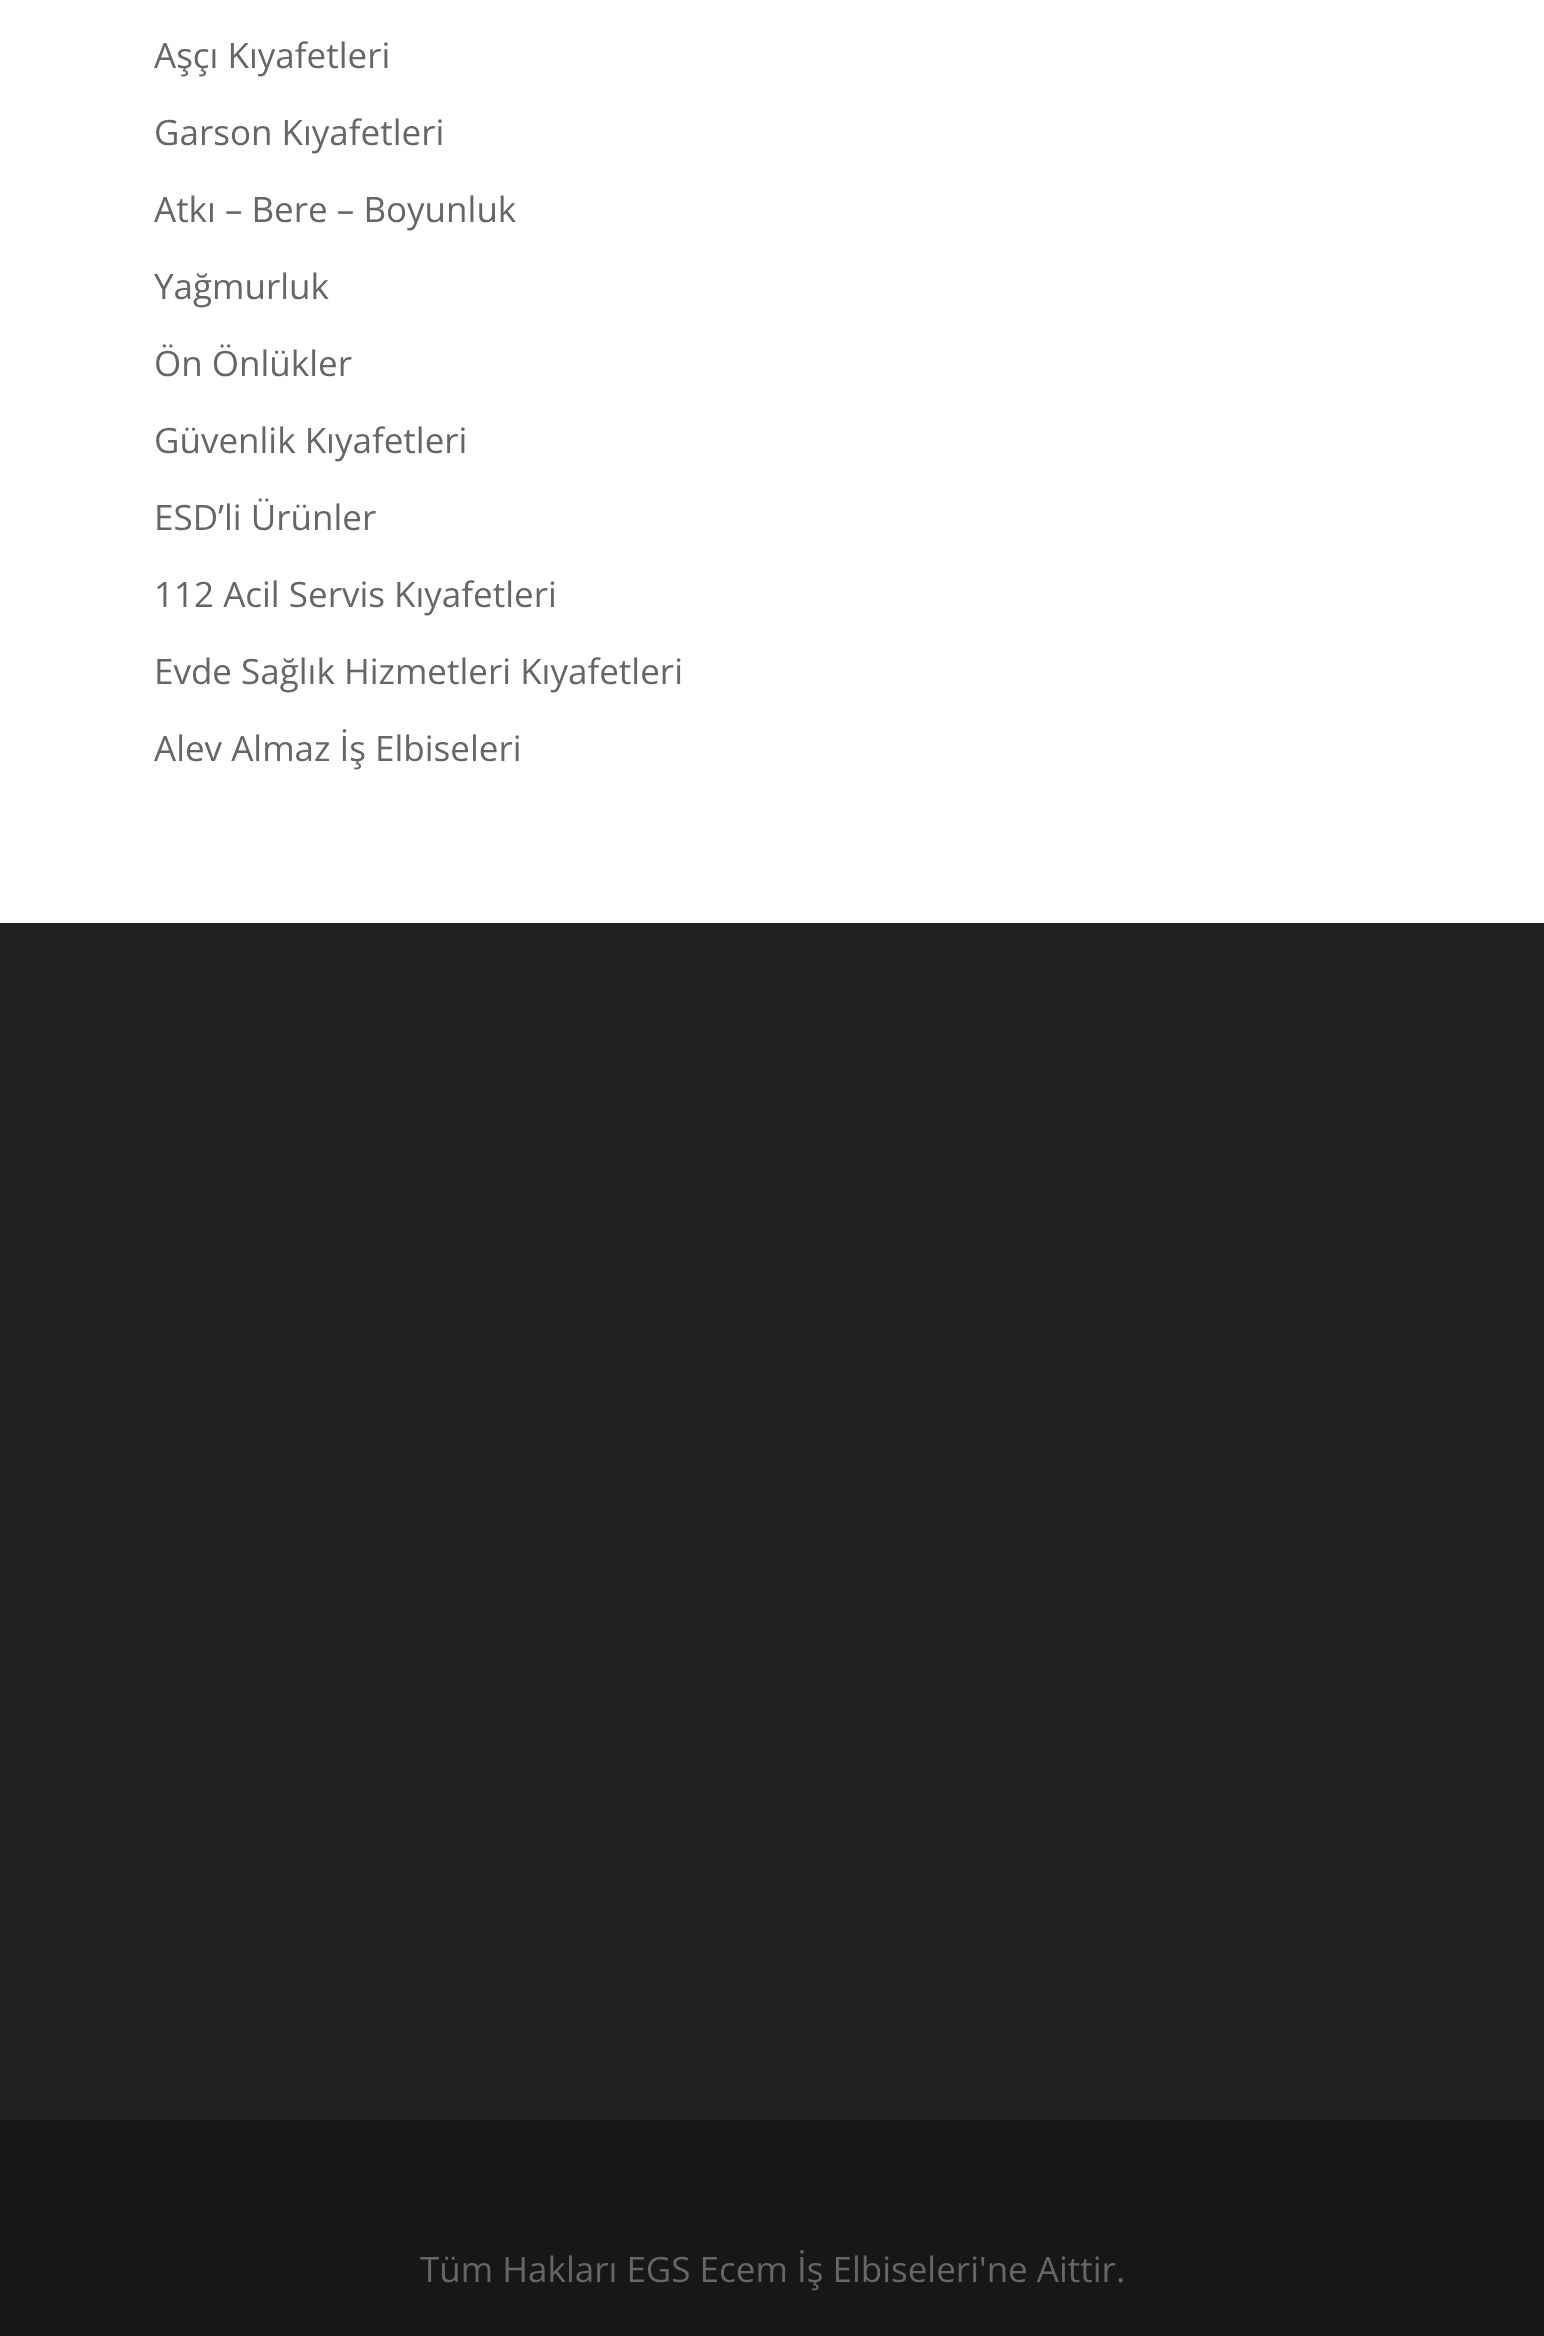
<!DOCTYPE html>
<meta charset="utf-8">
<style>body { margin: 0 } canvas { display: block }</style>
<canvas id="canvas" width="1544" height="2336"></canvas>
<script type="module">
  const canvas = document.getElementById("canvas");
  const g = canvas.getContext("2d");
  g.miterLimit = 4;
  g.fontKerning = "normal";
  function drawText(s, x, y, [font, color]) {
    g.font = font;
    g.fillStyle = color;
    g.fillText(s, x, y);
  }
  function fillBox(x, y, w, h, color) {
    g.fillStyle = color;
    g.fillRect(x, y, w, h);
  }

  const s1 = ["35px Open Sans", "#666666"];

  fillBox(0, 0, 1544, 2336, "#FFFFFF");
  drawText("Aşçı Kıyafetleri", 154, 68, s1);
  drawText("Garson Kıyafetleri", 154, 145, s1);
  drawText("Atkı – Bere – Boyunluk", 154, 222, s1);
  drawText("Yağmurluk", 154, 299, s1);
  drawText("Ön Önlükler", 154, 376, s1);
  drawText("Güvenlik Kıyafetleri", 154, 453, s1);
  drawText("ESD’li Ürünler", 154, 530, s1);
  drawText("112 Acil Servis Kıyafetleri", 154, 607, s1);
  drawText("Evde Sağlık Hizmetleri Kıyafetleri", 154, 684, s1);
  drawText("Alev Almaz İş Elbiseleri", 154, 761, s1);
  fillBox(0, 923, 1544, 1197, "#222222");
  fillBox(0, 2120, 1544, 216, "#171717");
  drawText("Tüm Hakları EGS Ecem İş Elbiseleri'ne Aittir.", 420, 2282, s1);
</script>
